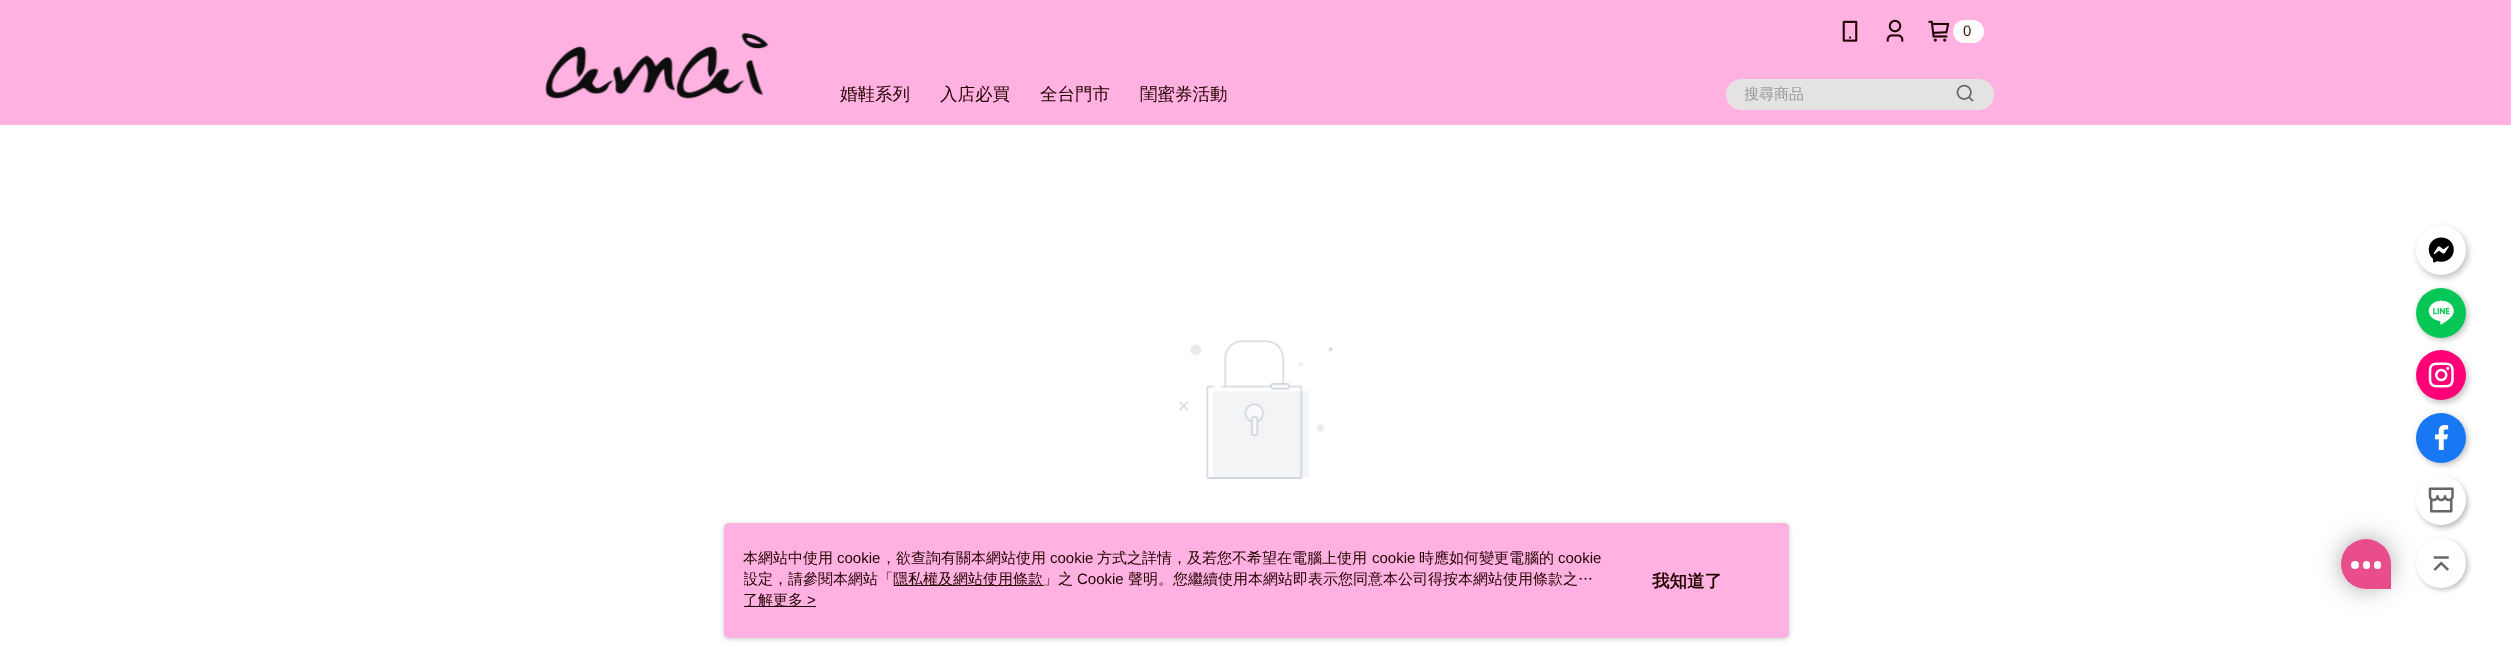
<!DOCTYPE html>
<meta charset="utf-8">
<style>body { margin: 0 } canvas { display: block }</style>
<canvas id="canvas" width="2511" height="645"></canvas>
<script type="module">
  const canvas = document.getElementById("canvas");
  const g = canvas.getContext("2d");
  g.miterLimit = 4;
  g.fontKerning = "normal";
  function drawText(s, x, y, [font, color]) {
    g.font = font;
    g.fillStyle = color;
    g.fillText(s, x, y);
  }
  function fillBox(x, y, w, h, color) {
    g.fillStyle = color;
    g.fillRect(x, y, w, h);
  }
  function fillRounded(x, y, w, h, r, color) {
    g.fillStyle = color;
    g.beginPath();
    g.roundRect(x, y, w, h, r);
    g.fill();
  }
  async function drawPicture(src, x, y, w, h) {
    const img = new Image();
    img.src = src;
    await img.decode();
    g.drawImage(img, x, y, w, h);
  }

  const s1 = ["15px Liberation Sans", "#2E1D10"];
  const s2 = ["500 17.5px WenQuanYi Zen Hei", "#220101"];
  const s3 = ["500 15px WenQuanYi Zen Hei", "#999999"];
  const s4 = ["500 15px WenQuanYi Zen Hei", "#220101"];
  const s5 = ["15px Liberation Sans", "#220101"];
  const s6 = ["bold 17.5px WenQuanYi Zen Hei", "#220101"];

  fillBox(0, 0, 2511, 645, "#FFFFFF");
  fillBox(0, 0, 2511, 125, "#FFB2E1");
  await drawPicture("pic1.png", 545, 33, 224, 66);
  await drawPicture("pic2.png", 1842, 20, 16, 22);
  await drawPicture("pic3.png", 1886, 19, 18, 23);
  await drawPicture("pic4.png", 1928, 20, 22, 22);
  fillRounded(1953, 20, 31, 23, 11.5, "#FFFCFC");
  drawText("0", 1963, 36, s1);
  drawText("婚鞋系列", 840, 100, s2);
  drawText("入店必買", 940, 100, s2);
  drawText("全台門市", 1040, 100, s2);
  drawText("閨蜜券活動", 1140, 100, s2);
  fillRounded(1726, 79, 268, 31, 15.5, "#E4E2E2");
  g.save();
  g.beginPath();
  g.rect(1745, 84, 190, 21);
  g.clip();
  drawText("搜尋商品", 1744, 99, s3);
  g.restore();
  await drawPicture("pic5.png", 1956, 84, 18, 18);
  g.fillStyle = "rgba(0, 0, 0, 0.25)";
  g.filter = "blur(3px)";
  g.beginPath();
  g.roundRect(2418, 228, 50, 50, 25);
  g.fill();
  g.filter = "none";
  g.fillStyle = "#FFFFFF";
  g.beginPath();
  g.arc(2441, 250, 25, 0, Math.PI * 2);
  g.fill();
  await drawPicture("pic6.png", 2428, 237, 26, 26);
  g.fillStyle = "rgba(0, 0, 0, 0.25)";
  g.filter = "blur(3px)";
  g.beginPath();
  g.roundRect(2418, 290, 50, 50, 25);
  g.fill();
  g.filter = "none";
  g.fillStyle = "#06C755";
  g.beginPath();
  g.arc(2441, 313, 25, 0, Math.PI * 2);
  g.fill();
  await drawPicture("pic7.png", 2428, 300, 26, 25);
  g.fillStyle = "rgba(0, 0, 0, 0.25)";
  g.filter = "blur(3px)";
  g.beginPath();
  g.roundRect(2418, 353, 50, 50, 25);
  g.fill();
  g.filter = "none";
  g.fillStyle = "#FF0076";
  g.beginPath();
  g.arc(2441, 375, 25, 0, Math.PI * 2);
  g.fill();
  await drawPicture("pic8.png", 2428, 362, 26, 26);
  g.fillStyle = "rgba(0, 0, 0, 0.25)";
  g.filter = "blur(3px)";
  g.beginPath();
  g.roundRect(2418, 415, 50, 50, 25);
  g.fill();
  g.filter = "none";
  g.fillStyle = "#1877F2";
  g.beginPath();
  g.arc(2441, 438, 25, 0, Math.PI * 2);
  g.fill();
  await drawPicture("pic9.png", 2435, 425, 14, 25);
  g.fillStyle = "rgba(0, 0, 0, 0.25)";
  g.filter = "blur(2.5px)";
  g.beginPath();
  g.roundRect(2418, 478, 50, 50, 25);
  g.fill();
  g.filter = "none";
  g.fillStyle = "#FFFFFF";
  g.beginPath();
  g.arc(2441, 500, 25, 0, Math.PI * 2);
  g.fill();
  await drawPicture("pic10.png", 2428, 487, 26, 26);
  g.fillStyle = "rgba(0, 0, 0, 0.25)";
  g.filter = "blur(2.5px)";
  g.beginPath();
  g.roundRect(2418, 540, 50, 50, 25);
  g.fill();
  g.filter = "none";
  g.fillStyle = "#FFFFFF";
  g.beginPath();
  g.arc(2441, 563, 25, 0, Math.PI * 2);
  g.fill();
  await drawPicture("pic11.png", 2433, 556, 16, 15);
  await drawPicture("pic12.png", 1179, 340, 155, 140);
  g.fillStyle = "rgba(151, 151, 151, 0.5)";
  g.filter = "blur(2.5px)";
  g.beginPath();
  g.roundRect(724, 524, 1065, 115, 5);
  g.fill();
  g.filter = "none";
  fillRounded(724, 523, 1065, 115, 5, "#FFB2E1");
  drawText("本網站中使用", 743, 563, s4);
  drawText("cookie", 837, 563, s5);
  drawText("，欲查詢有關本網站使用", 881, 563, s4);
  drawText("cookie", 1050, 563, s5);
  drawText("方式之詳情，及若您不希望在電腦上使用", 1097, 563, s4);
  drawText("cookie", 1372, 563, s5);
  drawText("時應如何變更電腦的", 1419, 563, s4);
  drawText("cookie", 1558, 563, s5);
  g.save();
  g.beginPath();
  g.rect(744, 548, 862, 42);
  g.clip();
  drawText("設定，請參閱本網站「", 743, 584, s4);
  g.restore();
  fillBox(894, 585, 150, 1, "#220101");
  drawText("隱私權及網站使用條款」之", 893, 584, s4);
  drawText("Cookie", 1077, 584, s5);
  drawText("聲明。您繼續使用本網站即表示您同意本公司得按本網站使用條款之…", 1128, 584, s4);
  fillBox(744, 606, 72, 1, "#220101");
  drawText("了解更多", 743, 605, s4);
  drawText(">", 807, 605, s5);
  drawText("我知道了", 1652, 587, s6);
  g.fillStyle = "rgba(119, 119, 119, 0.64)";
  g.filter = "blur(12.5px)";
  g.beginPath();
  g.roundRect(2341, 539, 50, 50, 25);
  g.fill();
  g.filter = "none";
  g.fillStyle = "#E94D8A";
  g.beginPath();
  g.roundRect(2341, 539, 50, 50, [25, 25, 0, 25]);
  g.fill();
  g.fillStyle = "#FFFFFF";
  g.beginPath();
  g.arc(2355, 565, 4, 0, Math.PI * 2);
  g.fill();
  fillRounded(2363, 561, 7, 8, 3.5, "#FFFFFF");
  fillRounded(2374, 561, 7, 8, 3.5, "#FFFFFF");
</script>
